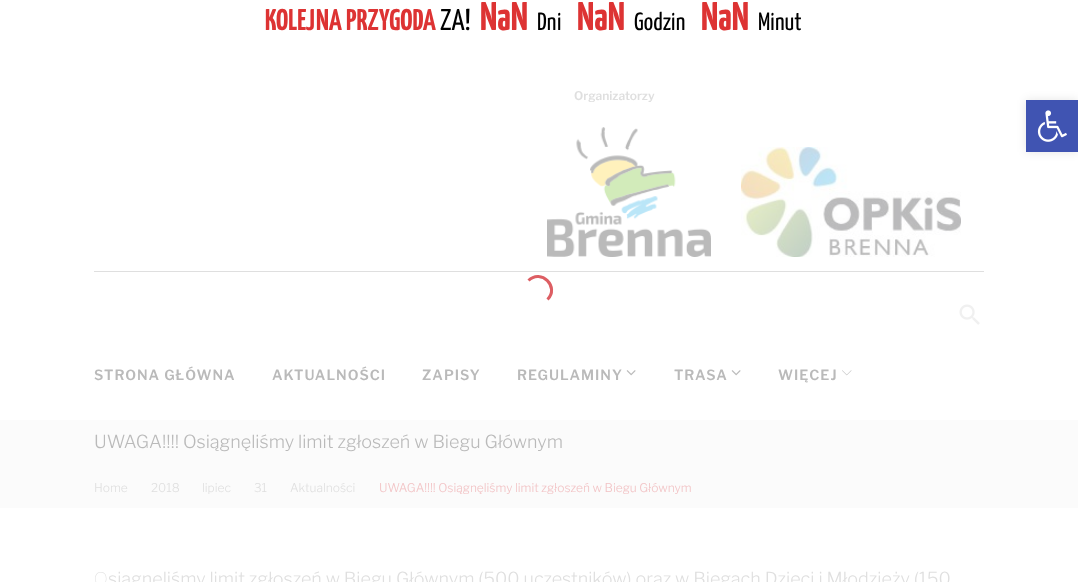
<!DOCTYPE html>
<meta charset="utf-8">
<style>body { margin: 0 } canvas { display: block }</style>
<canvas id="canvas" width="1078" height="582"></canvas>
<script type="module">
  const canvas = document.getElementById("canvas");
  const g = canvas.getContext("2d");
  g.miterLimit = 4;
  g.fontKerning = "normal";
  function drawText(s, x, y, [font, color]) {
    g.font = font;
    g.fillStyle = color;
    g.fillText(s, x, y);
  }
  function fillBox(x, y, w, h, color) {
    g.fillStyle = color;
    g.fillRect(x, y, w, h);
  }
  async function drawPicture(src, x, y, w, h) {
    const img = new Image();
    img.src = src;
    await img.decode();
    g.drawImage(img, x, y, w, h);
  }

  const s1 = ["bold 30px Yanone Kaffeesatz", "#DD3333"];
  const s2 = ["30px Yanone Kaffeesatz", "#000000"];
  const s3 = ["bold 40px Yanone Kaffeesatz", "#DD3333"];
  const s4 = ["25px Yanone Kaffeesatz", "#000000"];
  const s5 = ["600 12px Libre Franklin", "#DFDFDF"];
  const s6 = ["600 14px Libre Franklin", "#BABABA"];
  const s7 = ["300 18px Libre Franklin", "#BABABA"];
  const s8 = ["300 12px Libre Franklin", "#DFDFDF"];
  const s9 = ["300 12px Libre Franklin", "#F2C3C5"];
  const s10 = ["100 18px Noto Sans", "#DFDFDF"];
  const s11 = ["300 18px Libre Franklin", "#DFDFDF"];

  fillBox(0, 0, 1078, 582, "#FFFFFF");
  drawText("KOLEJNA PRZYGODA", 265, 30, s1);
  drawText("ZA!", 440, 30, s2);
  drawText("NaN", 480, 30, s3);
  drawText("Dni", 537, 30, s4);
  drawText("NaN", 577, 30, s3);
  drawText("Godzin", 634, 30, s4);
  drawText("NaN", 701, 30, s3);
  drawText("Minut", 758, 30, s4);
  fillBox(94, 271, 890, 1, "#DFDFDF");
  drawText("Organizatorzy", 574, 100, s5);
  await drawPicture("pic1.png", 547, 127, 164, 130);
  await drawPicture("pic2.png", 741, 147, 220, 110);
  await drawPicture("pic3.png", 959, 304, 21, 21);
  g.letterSpacing = "1px";
  drawText("STRONA GŁÓWNA", 94, 380, s6);
  drawText("AKTUALNOŚCI", 272, 380, s6);
  drawText("ZAPISY", 422, 380, s6);
  drawText("REGULAMINY", 517, 380, s6);
  await drawPicture("pic4.png", 626, 370, 10, 6);
  drawText("TRASA", 674, 380, s6);
  await drawPicture("pic4.png", 731, 370, 10, 6);
  drawText("WIĘCEJ", 778, 380, s6);
  await drawPicture("pic5.png", 842, 370, 10, 6);
  fillBox(0, 420, 1078, 88, "#FBFBFB");
  g.letterSpacing = "0px";
  drawText("UWAGA!!!! Osiągnęliśmy limit zgłoszeń w Biegu Głównym", 94, 448, s7);
  drawText("Home", 94, 492, s8);
  drawText("2018", 151, 492, s8);
  drawText("lipiec", 202, 492, s8);
  drawText("31", 254, 492, s8);
  drawText("Aktualności", 290, 492, s8);
  drawText("UWAGA!!!! Osiągnęliśmy limit zgłoszeń w Biegu Głównym", 379, 492, s9);
  drawText("O", 94, 585, s10);
  drawText("siągnęliśmy limit zgłoszeń w Biegu Głównym (500 uczestników) oraz w Biegach Dzieci i Młodzieży (150", 108, 585, s11);
  g.fillStyle = "rgba(0, 0, 0, 0.1)";
  g.filter = "blur(5px)";
  g.beginPath();
  g.rect(1026, 100, 52, 52);
  g.fill();
  g.filter = "none";
  fillBox(1026, 100, 52, 52, "#4054B2");
  await drawPicture("pic6.png", 1037, 110, 30, 32);
  g.beginPath();
  g.moveTo(528.5, 280.5);
  g.bezierCurveTo(541, 268, 560, 287, 547.5, 299.5);
  g.strokeStyle = "#DD5E63";
  g.lineWidth = 3;
  g.stroke();
</script>
